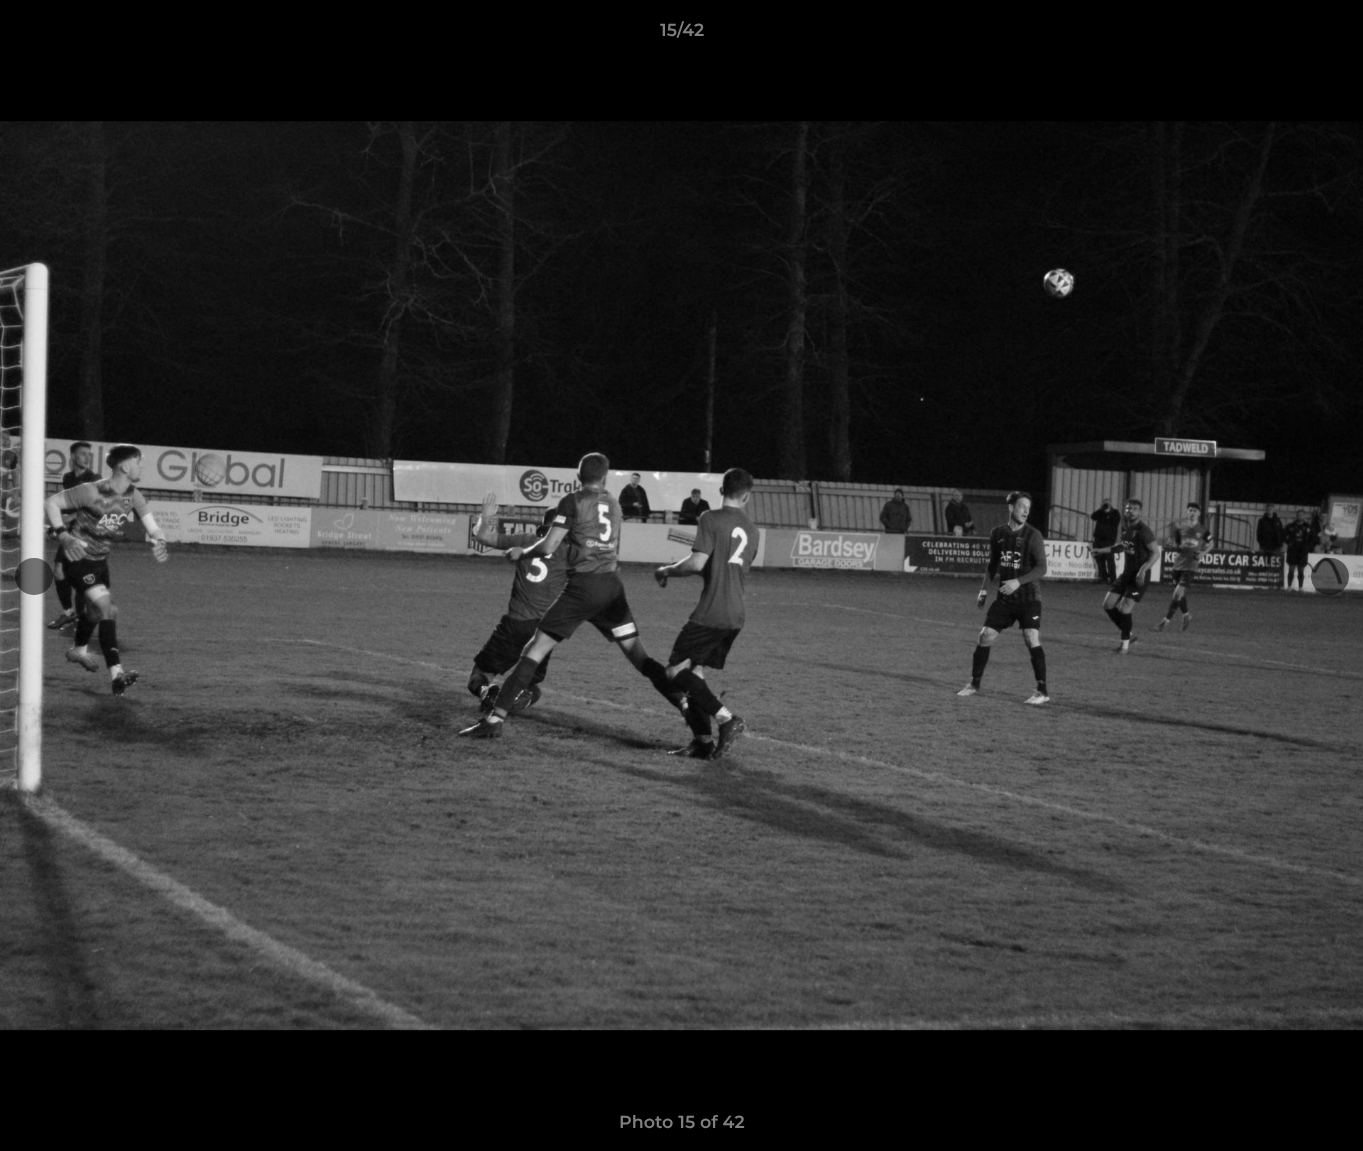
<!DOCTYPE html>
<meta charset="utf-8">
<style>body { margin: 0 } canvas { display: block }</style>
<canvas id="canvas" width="1363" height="1151"></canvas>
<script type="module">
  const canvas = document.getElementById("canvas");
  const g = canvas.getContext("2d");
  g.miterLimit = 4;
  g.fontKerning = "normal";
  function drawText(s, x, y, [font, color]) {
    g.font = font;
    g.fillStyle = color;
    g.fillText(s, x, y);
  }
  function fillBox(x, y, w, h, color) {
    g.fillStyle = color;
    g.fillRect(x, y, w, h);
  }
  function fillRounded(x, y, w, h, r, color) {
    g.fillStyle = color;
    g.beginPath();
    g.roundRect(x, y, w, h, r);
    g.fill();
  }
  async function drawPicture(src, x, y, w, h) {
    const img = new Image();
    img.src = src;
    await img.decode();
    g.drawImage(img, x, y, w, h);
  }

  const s1 = ["600 17.5px Montserrat", "#808080"];

  fillBox(0, 0, 1363, 1151, "#000000");
  drawText("15/42", 660, 36, s1);
  await drawPicture("pic1.png", 0, 121, 1363, 910);
  fillRounded(15, 558, 38, 37, 18.5, "rgba(0, 0, 0, 0.5)");
  fillRounded(1311, 558, 38, 37, 18.5, "rgba(0, 0, 0, 0.5)");
  drawText("Photo 15 of 42", 619, 1128, s1);
</script>
